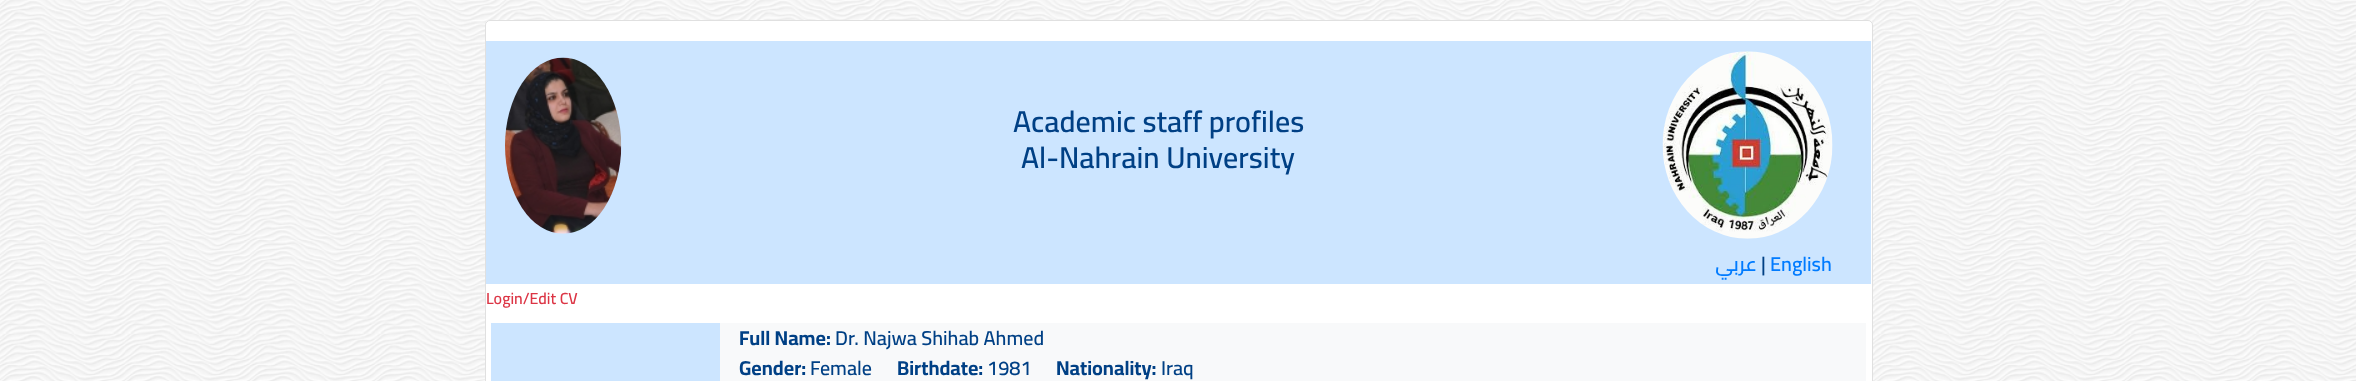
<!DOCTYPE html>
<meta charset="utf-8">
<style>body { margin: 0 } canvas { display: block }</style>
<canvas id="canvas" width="2356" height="381"></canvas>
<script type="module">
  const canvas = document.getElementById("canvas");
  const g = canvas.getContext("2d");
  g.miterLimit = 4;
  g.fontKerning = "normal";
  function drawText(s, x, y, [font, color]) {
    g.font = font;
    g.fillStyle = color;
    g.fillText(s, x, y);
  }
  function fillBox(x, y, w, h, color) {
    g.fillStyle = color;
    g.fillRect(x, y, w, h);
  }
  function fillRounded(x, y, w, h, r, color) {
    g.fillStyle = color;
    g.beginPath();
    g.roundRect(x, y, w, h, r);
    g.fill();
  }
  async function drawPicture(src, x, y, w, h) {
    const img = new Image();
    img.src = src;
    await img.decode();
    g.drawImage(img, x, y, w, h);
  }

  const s1 = ["600 30px Cairo", "#004085"];
  const s2 = ["600 20px Cairo", "#007BFF"];
  const s3 = ["600 20px Cairo", "#004085"];
  const s4 = ["600 16px Cairo", "#DC3545"];
  const s5 = ["bold 20px Cairo", "#004085"];

  fillBox(0, 0, 2356, 381, "#FFFFFF");
  await drawPicture("pic1.png", 0, 0, 2356, 381);
  fillRounded(485, 20, 1388, 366, 5, "#FFFFFF");
  g.beginPath();
  g.roundRect(485.5, 20.5, 1387, 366, 4.5);
  g.strokeStyle = "rgba(0, 0, 0, 0.12)";
  g.stroke();
  fillBox(486, 41, 1385, 243, "#CCE5FF");
  await drawPicture("pic2.png", 505, 57, 117, 177);
  drawText("Academic staff profiles", 1013, 132, s1);
  drawText("Al-Nahrain University", 1021, 168, s1);
  await drawPicture("pic3.png", 1662, 51, 171, 188);
  g.direction = "rtl";
  drawText("عربي", 1757, 271, s2);
  g.direction = "ltr";
  drawText("|", 1761, 271, s3);
  drawText("English", 1770, 271, s2);
  drawText("Login/Edit CV", 486, 304, s4);
  fillBox(491, 323, 229, 58, "#CCE5FF");
  fillBox(720, 323, 1146, 58, "#F8F9FA");
  drawText("Full Name:", 739, 345, s5);
  drawText("Dr. Najwa Shihab Ahmed", 835, 345, s3);
  drawText("Gender:", 739, 375, s5);
  drawText("Female", 810, 375, s3);
  drawText("Birthdate:", 897, 375, s5);
  drawText("1981", 987, 375, s3);
  drawText("Nationality:", 1056, 375, s5);
  drawText("Iraq", 1161, 375, s3);
</script>
